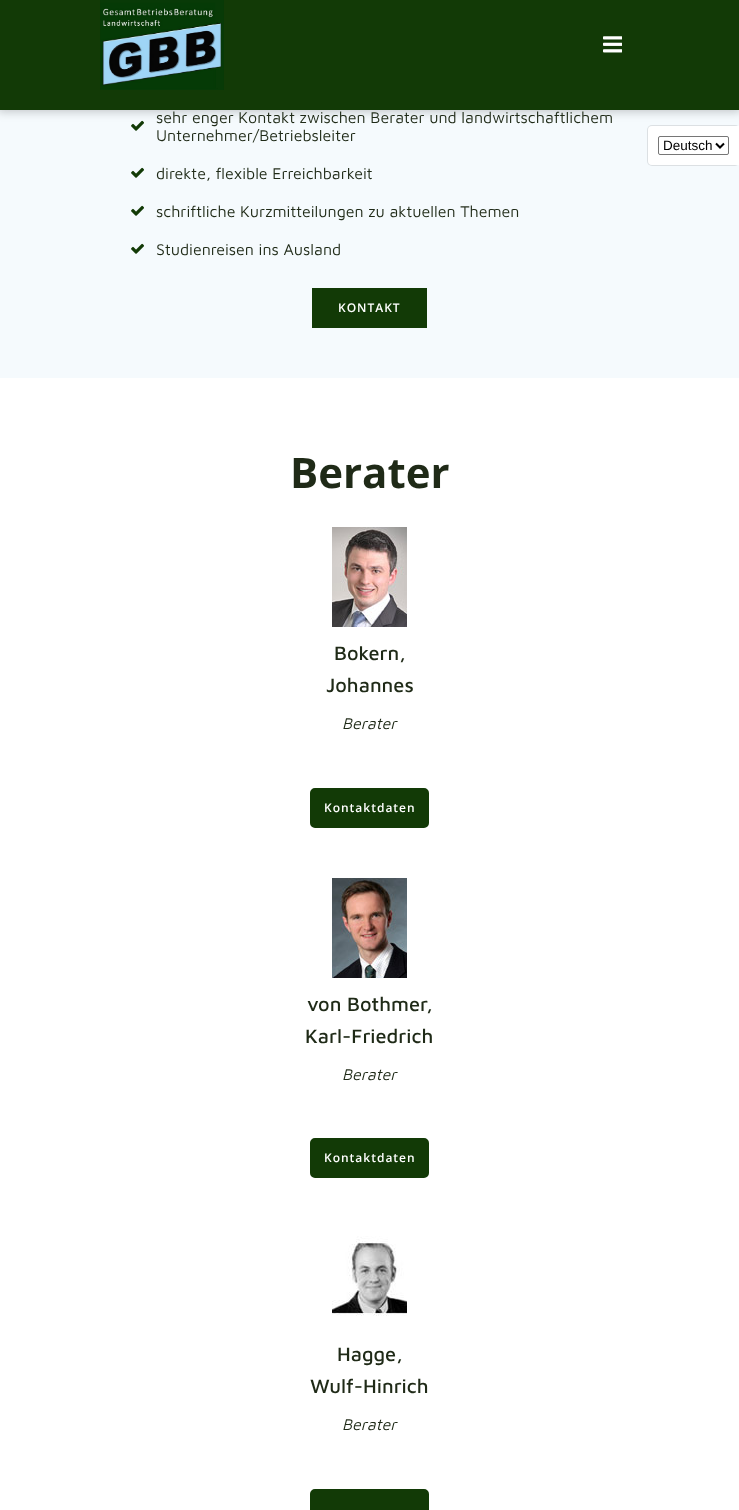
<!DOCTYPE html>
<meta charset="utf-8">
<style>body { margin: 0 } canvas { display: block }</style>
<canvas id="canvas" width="739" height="1510"></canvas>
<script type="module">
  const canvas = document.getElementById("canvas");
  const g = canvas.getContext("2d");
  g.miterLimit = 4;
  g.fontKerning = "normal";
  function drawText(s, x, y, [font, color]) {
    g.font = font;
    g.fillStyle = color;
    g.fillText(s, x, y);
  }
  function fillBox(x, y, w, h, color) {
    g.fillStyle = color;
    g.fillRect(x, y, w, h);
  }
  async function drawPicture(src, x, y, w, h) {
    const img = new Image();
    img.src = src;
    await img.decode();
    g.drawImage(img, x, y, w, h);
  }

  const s1 = ["16px Maven Pro", "#1F2A17"];
  const s2 = ["600 12px Open Sans", "#FFFFFF"];
  const s3 = ["bold 42px Open Sans", "#1F2A17"];
  const s4 = ["500 20px Maven Pro", "#1F2A17"];
  const s5 = ["italic 16px Maven Pro", "#1F2A17"];
  const s6 = ["13.5px Liberation Sans", "#000000"];

  fillBox(0, 0, 739, 1510, "#FFFFFF");
  fillBox(0, 110, 739, 268, "#F5FAFD");
  await drawPicture("pic3.png", 131, 120, 13, 11);
  g.fillStyle = "rgba(0, 0, 0, 0.2)";
  g.filter = "blur(5px)";
  g.beginPath();
  g.rect(-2, -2, 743, 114);
  g.fill();
  g.filter = "none";
  fillBox(0, 0, 739, 110, "#123A06");
  await drawPicture("pic1.png", 100, 0, 124, 90);
  await drawPicture("pic2.png", 603, 36, 19, 17);
  drawText("sehr enger Kontakt zwischen Berater und landwirtschaftlichem", 156, 123, s1);
  drawText("Unternehmer/Betriebsleiter", 156, 141, s1);
  await drawPicture("pic3.png", 131, 167, 13, 11);
  drawText("direkte, flexible Erreichbarkeit", 156, 179, s1);
  await drawPicture("pic3.png", 131, 205, 13, 11);
  drawText("schriftliche Kurzmitteilungen zu aktuellen Themen", 156, 217, s1);
  await drawPicture("pic3.png", 131, 243, 13, 11);
  drawText("Studienreisen ins Ausland", 156, 255, s1);
  fillBox(312, 288, 115, 40, "#123A06");
  g.letterSpacing = "1px";
  drawText("KONTAKT", 338, 312, s2);
  g.letterSpacing = "0px";
  drawText("Berater", 290, 488, s3);
  await drawPicture("pic4.png", 332, 527, 75, 100);
  drawText("Bokern,", 334, 660, s4);
  drawText("Johannes", 326, 692, s4);
  drawText("Berater", 342, 729, s5);
  g.fillStyle = "#123A06";
  g.beginPath();
  g.roundRect(311, 789, 117, 38, 4);
  g.fill();
  g.strokeStyle = "#123A06";
  g.lineWidth = 2;
  g.stroke();
  g.letterSpacing = "1px";
  drawText("Kontaktdaten", 324, 812, s2);
  await drawPicture("pic5.png", 332, 878, 75, 100);
  g.letterSpacing = "0px";
  drawText("von Bothmer,", 307, 1011, s4);
  drawText("Karl-Friedrich", 305, 1043, s4);
  drawText("Berater", 342, 1080, s5);
  g.fillStyle = "#123A06";
  g.beginPath();
  g.roundRect(311, 1139, 117, 38, 4);
  g.fill();
  g.stroke();
  g.letterSpacing = "1px";
  drawText("Kontaktdaten", 324, 1162, s2);
  await drawPicture("pic6.png", 332, 1236, 75, 80);
  g.letterSpacing = "0px";
  drawText("Hagge,", 337, 1361, s4);
  drawText("Wulf-Hinrich", 310, 1393, s4);
  drawText("Berater", 342, 1430, s5);
  g.fillStyle = "#123A06";
  g.beginPath();
  g.roundRect(311, 1490, 117, 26, 4);
  g.fill();
  g.stroke();
  g.fillStyle = "rgba(0, 0, 0, 0.1)";
  g.filter = "blur(0.5px)";
  g.beginPath();
  g.roundRect(647, 125, 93, 41, 5);
  g.fill();
  g.filter = "none";
  g.fillStyle = "#FFFFFF";
  g.beginPath();
  g.roundRect(648, 126, 91, 39, [4, 0, 0, 4]);
  g.fill();
  g.beginPath();
  g.roundRect(658.5, 136.5, 70, 18, 1.5);
  g.strokeStyle = "#767676";
  g.lineWidth = 1;
  g.stroke();
  g.beginPath();
  g.moveTo(716, 143.5);
  g.lineTo(720, 147.5);
  g.lineTo(724, 143.5);
  g.strokeStyle = "#000000";
  g.lineWidth = 2;
  g.stroke();
  drawText("Deutsch", 663, 150, s6);
</script>
